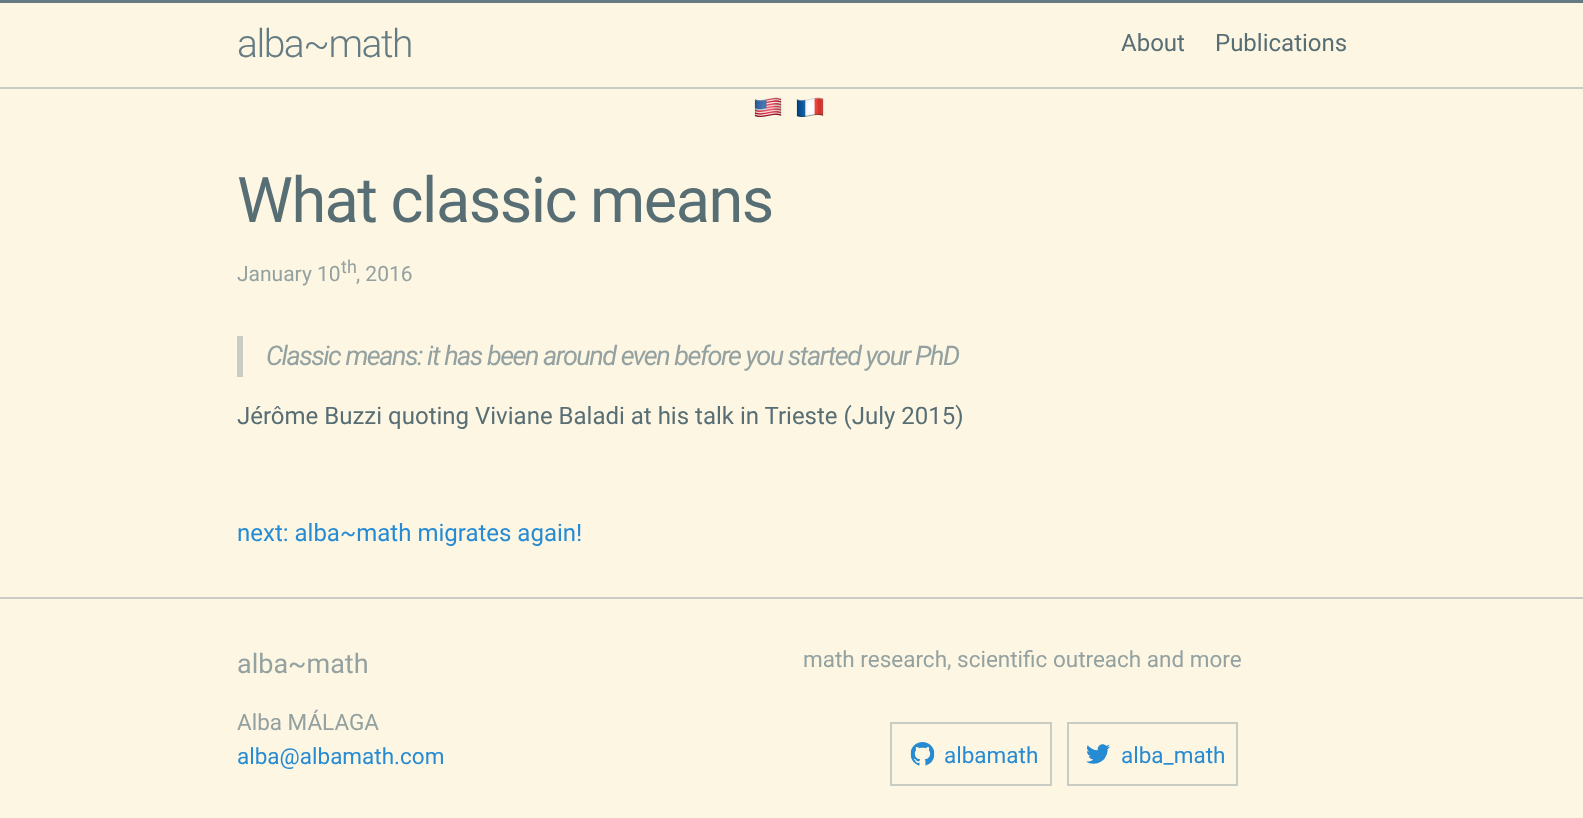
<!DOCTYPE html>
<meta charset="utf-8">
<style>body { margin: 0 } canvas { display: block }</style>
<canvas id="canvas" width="1583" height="818"></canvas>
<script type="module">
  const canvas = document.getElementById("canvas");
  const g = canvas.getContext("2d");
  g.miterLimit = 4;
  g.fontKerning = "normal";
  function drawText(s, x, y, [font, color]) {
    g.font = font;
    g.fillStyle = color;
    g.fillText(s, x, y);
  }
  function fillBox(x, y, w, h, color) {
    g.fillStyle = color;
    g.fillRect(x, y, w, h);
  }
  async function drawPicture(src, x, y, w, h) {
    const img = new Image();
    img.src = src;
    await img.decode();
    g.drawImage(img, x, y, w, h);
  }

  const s1 = ["300 39px Roboto", "#657B83"];
  const s2 = ["24px Roboto", "#586E75"];
  const s3 = ["63px Roboto", "#586E75"];
  const s4 = ["21px Roboto", "#93A1A1"];
  const s5 = ["18px Roboto", "#93A1A1"];
  const s6 = ["italic 27px Roboto", "#93A1A1"];
  const s7 = ["24px Roboto", "#268BD2"];
  const s8 = ["27px Roboto", "#93A1A1"];
  const s9 = ["22.5px Roboto", "#93A1A1"];
  const s10 = ["22.5px Roboto", "#268BD2"];

  fillBox(0, 0, 1583, 818, "#FDF6E3");
  fillBox(0, 0, 1583, 3, "#657B83");
  fillBox(0, 87, 1583, 2, "#C8CCC2");
  g.letterSpacing = "-1.5px";
  drawText("alba~math", 237, 57, s1);
  g.letterSpacing = "0px";
  drawText("About", 1121, 51, s2);
  drawText("Publications", 1215, 51, s2);
  await drawPicture("pic1.png", 754, 97, 28, 20);
  await drawPicture("pic2.png", 796, 97, 28, 20);
  g.letterSpacing = "-1.5px";
  drawText("What classic means", 237, 222, s3);
  g.letterSpacing = "0px";
  drawText("January 10", 237, 281, s4);
  drawText("th", 341, 273, s5);
  drawText(", 2016", 356, 281, s4);
  fillBox(237, 336, 6, 41, "#C8CCC2");
  g.letterSpacing = "-1.5px";
  drawText("Classic means: it has been around even before you started your PhD", 266, 365, s6);
  g.letterSpacing = "0px";
  drawText("Jérôme Buzzi quoting Viviane Baladi at his talk in Trieste (July 2015)", 237, 424, s2);
  drawText("next: alba~math migrates again!", 237, 541, s7);
  fillBox(0, 597, 1583, 2, "#C8CCC2");
  drawText("alba~math", 237, 673, s8);
  drawText("Alba MÁLAGA", 237, 730, s9);
  drawText("alba@albamath.com", 237, 764, s10);
  drawText("math research, scientific outreach and more", 803, 667, s9);
  g.strokeStyle = "#C8CCC2";
  g.lineWidth = 2;
  g.strokeRect(891, 723, 160, 62);
  await drawPicture("pic3.png", 910, 742, 25, 24);
  drawText("albamath", 944, 763, s10);
  g.strokeRect(1068, 723, 169, 62);
  await drawPicture("pic4.png", 1086, 744, 24, 20);
  drawText("alba_math", 1121, 763, s10);
</script>
